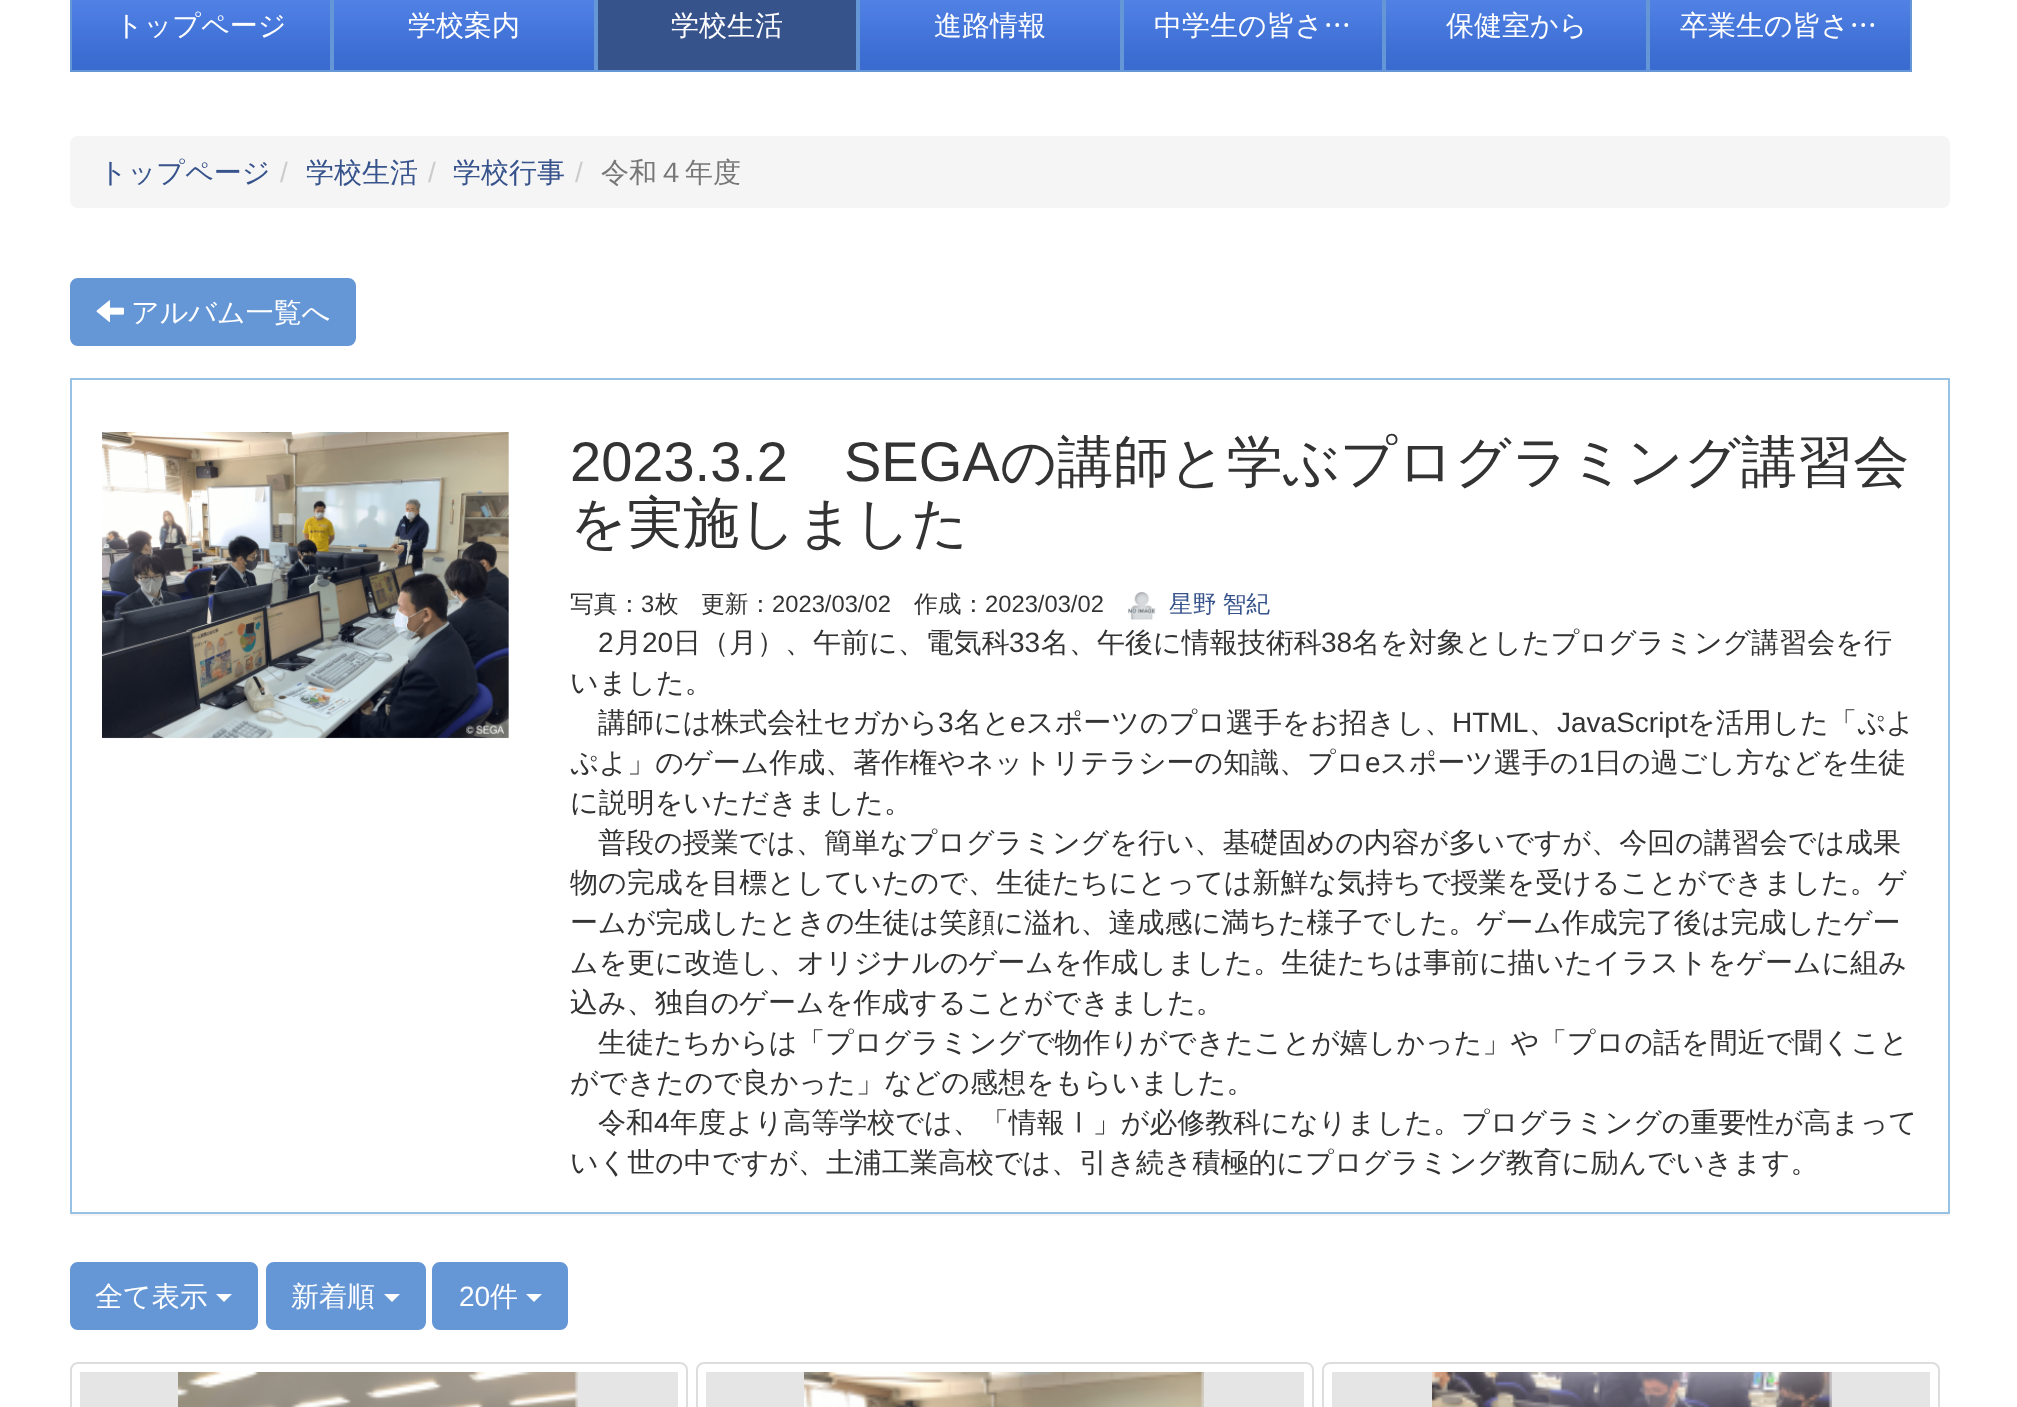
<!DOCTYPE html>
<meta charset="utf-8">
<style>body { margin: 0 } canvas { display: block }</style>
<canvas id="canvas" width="2017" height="1407"></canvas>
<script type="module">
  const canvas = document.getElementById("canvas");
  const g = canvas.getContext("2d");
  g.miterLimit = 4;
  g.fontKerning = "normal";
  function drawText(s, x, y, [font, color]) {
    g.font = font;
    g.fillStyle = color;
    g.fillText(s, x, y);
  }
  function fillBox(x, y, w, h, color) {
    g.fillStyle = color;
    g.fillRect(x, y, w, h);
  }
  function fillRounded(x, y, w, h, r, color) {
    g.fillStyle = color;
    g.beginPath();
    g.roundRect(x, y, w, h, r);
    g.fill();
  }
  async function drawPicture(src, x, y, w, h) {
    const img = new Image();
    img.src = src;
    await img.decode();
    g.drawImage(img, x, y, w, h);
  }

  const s1 = ["500 28px WenQuanYi Zen Hei", "#FFFFFF"];
  const s2 = ["500 28px WenQuanYi Zen Hei", "#37538C"];
  const s3 = ["28px Liberation Sans", "#CCCCCC"];
  const s4 = ["500 28px WenQuanYi Zen Hei", "#777777"];
  const s5 = ["56px Liberation Sans", "#333333"];
  const s6 = ["500 56px WenQuanYi Zen Hei", "#333333"];
  const s7 = ["500 23.75px WenQuanYi Zen Hei", "#333333"];
  const s8 = ["23.75px Liberation Sans", "#333333"];
  const s9 = ["500 23.75px WenQuanYi Zen Hei", "#37538C"];
  const s10 = ["28px Liberation Sans", "#333333"];
  const s11 = ["500 28px WenQuanYi Zen Hei", "#333333"];
  const s12 = ["28px Liberation Sans", "#FFFFFF"];

  fillBox(0, 0, 2017, 1407, "#FFFFFF");
  await drawPicture("pic1.png", 72, 0, 258, 70);
  g.strokeStyle = "#6596D6";
  g.lineWidth = 2;
  g.strokeRect(71, -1, 260, 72);
  drawText("トップページ", 115, 35, s1);
  await drawPicture("pic2.png", 334, 0, 260, 70);
  g.strokeRect(333, -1, 262, 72);
  drawText("学校案内", 408, 35, s1);
  g.strokeRect(597, -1, 260, 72);
  fillBox(598, 0, 258, 70, "#37538C");
  drawText("学校生活", 671, 35, s1);
  await drawPicture("pic2.png", 860, 0, 260, 70);
  g.strokeRect(859, -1, 262, 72);
  drawText("進路情報", 934, 35, s1);
  await drawPicture("pic1.png", 1124, 0, 258, 70);
  g.strokeRect(1123, -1, 260, 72);
  drawText("中学生の皆さ…", 1154, 35, s1);
  await drawPicture("pic2.png", 1386, 0, 260, 70);
  g.strokeRect(1385, -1, 262, 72);
  drawText("保健室から", 1446, 35, s1);
  await drawPicture("pic2.png", 1650, 0, 260, 70);
  g.strokeRect(1649, -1, 262, 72);
  drawText("卒業生の皆さ…", 1680, 35, s1);
  fillRounded(70, 136, 1880, 72, 8, "#F5F5F5");
  drawText("トップページ", 99, 182, s2);
  drawText("/", 280, 182, s3);
  drawText("学校生活", 306, 182, s2);
  drawText("/", 428, 182, s3);
  drawText("学校行事", 453, 182, s2);
  drawText("/", 575, 182, s3);
  drawText("令和４年度", 601, 182, s4);
  g.fillStyle = "#6596D6";
  g.beginPath();
  g.roundRect(71, 279, 284, 66, 7);
  g.fill();
  g.stroke();
  await drawPicture("pic3.png", 96, 300, 28, 23);
  drawText("アルバム一覧へ", 131, 322, s1);
  g.save();
  g.beginPath();
  g.rect(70, 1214, 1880, 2);
  g.clip();
  g.fillStyle = "rgba(0, 0, 0, 0.05)";
  g.filter = "blur(1px)";
  g.beginPath();
  g.rect(70, 380, 1880, 836);
  g.fill();
  g.filter = "none";
  g.restore();
  g.strokeStyle = "#97C1E5";
  g.strokeRect(71, 379, 1878, 834);
  await drawPicture("pic4.png", 102, 432, 407, 307);
  drawText("2023.3.2", 570, 481, s5);
  drawText("SEGA", 844, 481, s5);
  drawText("の講師と学ぶプログラミング講習会", 1000, 481, s6);
  drawText("を実施しました", 570, 542, s6);
  drawText("写真：", 570, 612, s7);
  drawText("3", 641, 612, s8);
  drawText("枚", 655, 612, s7);
  drawText("更新：", 701, 612, s7);
  drawText("2023/03/02", 772, 612, s8);
  drawText("作成：", 914, 612, s7);
  drawText("2023/03/02", 985, 612, s8);
  await drawPicture("pic5.png", 1128, 592, 28, 28);
  g.wordSpacing = "-1px";
  drawText("星野 智紀", 1169, 612, s9);
  g.wordSpacing = "0px";
  drawText("2", 598, 652, s10);
  drawText("月", 614, 652, s11);
  drawText("20", 642, 652, s10);
  drawText("日（月）、午前に、電気科", 673, 652, s11);
  drawText("33", 1009, 652, s10);
  drawText("名、午後に情報技術科", 1041, 652, s11);
  drawText("38", 1321, 652, s10);
  drawText("名を対象としたプログラミング講習会を行", 1352, 652, s11);
  drawText("いました。", 570, 692, s11);
  drawText("講師には株式会社セガから", 598, 732, s11);
  drawText("3", 938, 732, s10);
  drawText("名と", 954, 732, s11);
  drawText("e", 1010, 732, s10);
  drawText("スポーツのプロ選手をお招きし、", 1026, 732, s11);
  drawText("HTML", 1452, 732, s10);
  drawText("、", 1529, 732, s11);
  drawText("JavaScript", 1557, 732, s10);
  drawText("を活用した「ぷよ", 1687, 732, s11);
  drawText("ぷよ」のゲーム作成、著作権やネットリテラシーの知識、プロ", 570, 772, s11);
  drawText("e", 1365, 772, s10);
  drawText("スポーツ選手の", 1380, 772, s11);
  drawText("1", 1579, 772, s10);
  drawText("日の過ごし方などを生徒", 1594, 772, s11);
  drawText("に説明をいただきました。", 570, 812, s11);
  drawText("普段の授業では、簡単なプログラミングを行い、基礎固めの内容が多いですが、今回の講習会では成果", 598, 852, s11);
  drawText("物の完成を目標としていたので、生徒たちにとっては新鮮な気持ちで授業を受けることができました。ゲ", 570, 892, s11);
  drawText("ームが完成したときの生徒は笑顔に溢れ、達成感に満ちた様子でした。ゲーム作成完了後は完成したゲー", 570, 932, s11);
  drawText("ムを更に改造し、オリジナルのゲームを作成しました。生徒たちは事前に描いたイラストをゲームに組み", 570, 972, s11);
  drawText("込み、独自のゲームを作成することができました。", 570, 1012, s11);
  drawText("生徒たちからは「プログラミングで物作りができたことが嬉しかった」や「プロの話を間近で聞くこと", 598, 1052, s11);
  drawText("ができたので良かった」などの感想をもらいました。", 570, 1092, s11);
  drawText("令和", 598, 1132, s11);
  drawText("4", 654, 1132, s10);
  drawText("年度より高等学校では、「情報Ⅰ」が必修教科になりました。プログラミングの重要性が高まって", 670, 1132, s11);
  drawText("いく世の中ですが、土浦工業高校では、引き続き積極的にプログラミング教育に励んでいきます。", 570, 1172, s11);
  g.fillStyle = "#6596D6";
  g.beginPath();
  g.roundRect(71, 1263, 186, 66, 7);
  g.fill();
  g.strokeStyle = "#6596D6";
  g.stroke();
  drawText("全て表示", 95, 1306, s1);
  g.beginPath();
  g.moveTo(216, 1294);
  g.lineTo(232, 1294);
  g.lineTo(224, 1302);
  g.closePath();
  g.fill();
  g.fillStyle = "#6596D6";
  g.beginPath();
  g.roundRect(267, 1263, 158, 66, 7);
  g.fill();
  g.stroke();
  drawText("新着順", 291, 1306, s1);
  g.beginPath();
  g.moveTo(384, 1294);
  g.lineTo(400, 1294);
  g.lineTo(392, 1302);
  g.closePath();
  g.fill();
  g.fillStyle = "#6596D6";
  g.beginPath();
  g.roundRect(433, 1263, 134, 66, 7);
  g.fill();
  g.stroke();
  drawText("20", 459, 1306, s12);
  drawText("件", 490, 1306, s1);
  g.beginPath();
  g.moveTo(526, 1294);
  g.lineTo(542, 1294);
  g.lineTo(534, 1302);
  g.closePath();
  g.fill();
  g.beginPath();
  g.roundRect(71, 1363, 616, 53, 7);
  g.strokeStyle = "#DDDDDD";
  g.stroke();
  fillBox(80, 1372, 598, 35, "#E5E5E5");
  await drawPicture("pic6.png", 178, 1372, 400, 35);
  g.beginPath();
  g.roundRect(697, 1363, 616, 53, 7);
  g.stroke();
  fillBox(706, 1372, 598, 35, "#E5E5E5");
  await drawPicture("pic7.png", 804, 1372, 400, 35);
  g.beginPath();
  g.roundRect(1323, 1363, 616, 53, 7);
  g.stroke();
  fillBox(1332, 1372, 598, 35, "#E5E5E5");
  await drawPicture("pic8.png", 1432, 1372, 400, 35);
</script>
